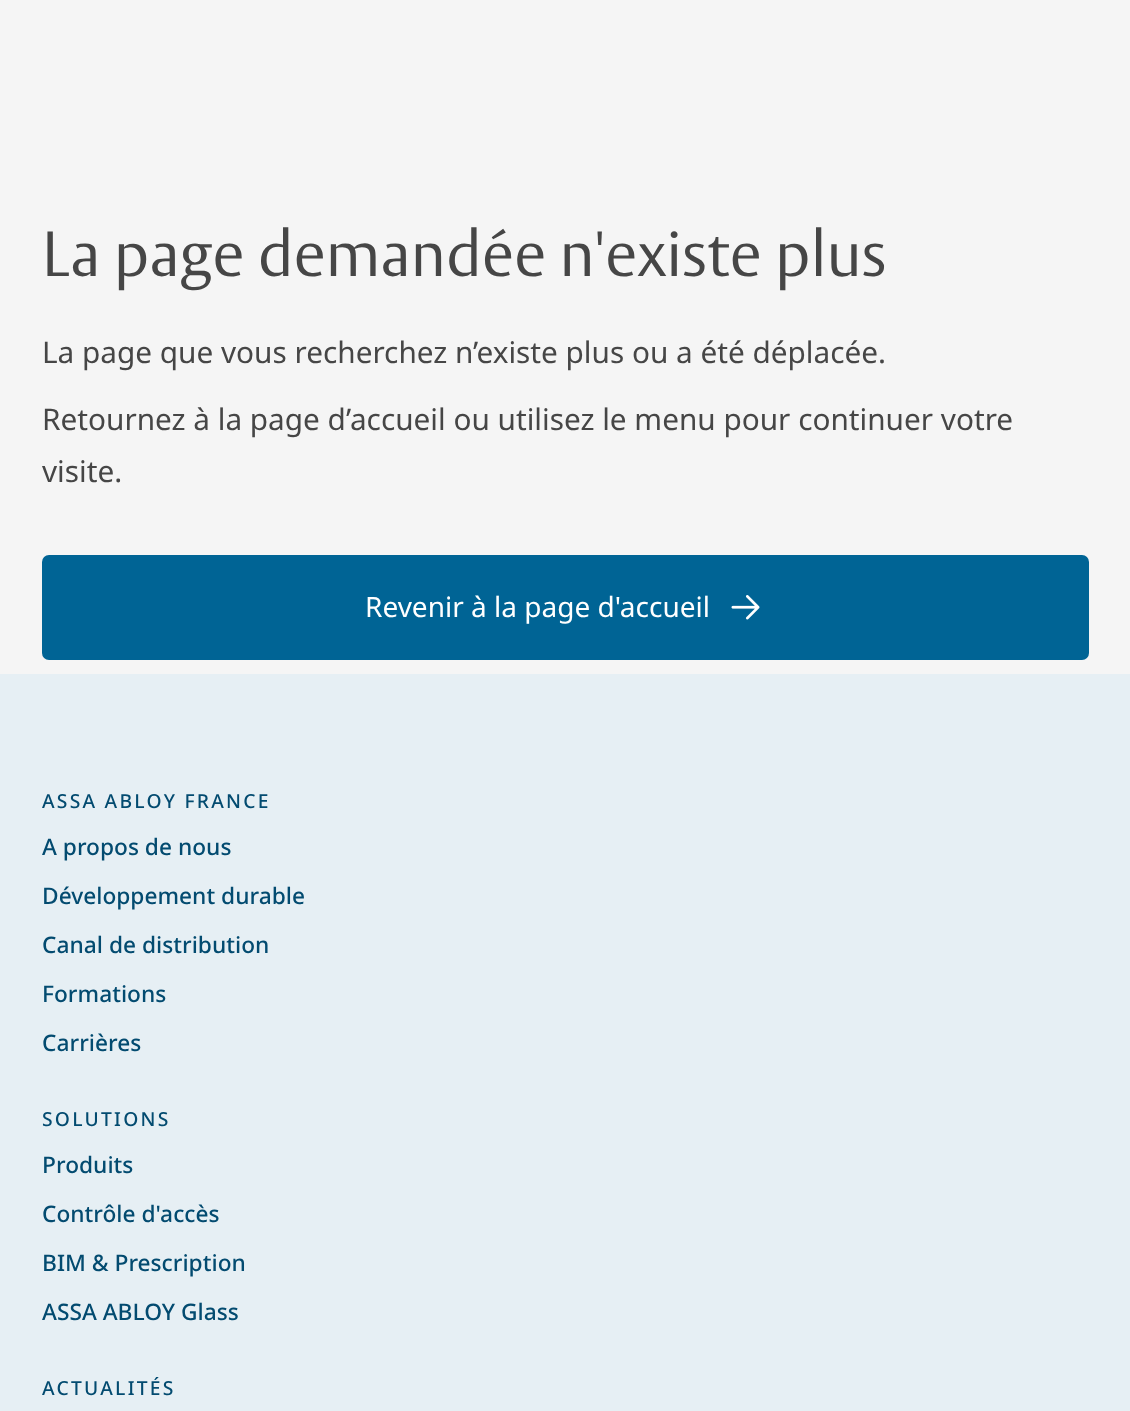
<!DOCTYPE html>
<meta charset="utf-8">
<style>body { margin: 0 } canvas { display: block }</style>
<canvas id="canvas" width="1130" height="1411"></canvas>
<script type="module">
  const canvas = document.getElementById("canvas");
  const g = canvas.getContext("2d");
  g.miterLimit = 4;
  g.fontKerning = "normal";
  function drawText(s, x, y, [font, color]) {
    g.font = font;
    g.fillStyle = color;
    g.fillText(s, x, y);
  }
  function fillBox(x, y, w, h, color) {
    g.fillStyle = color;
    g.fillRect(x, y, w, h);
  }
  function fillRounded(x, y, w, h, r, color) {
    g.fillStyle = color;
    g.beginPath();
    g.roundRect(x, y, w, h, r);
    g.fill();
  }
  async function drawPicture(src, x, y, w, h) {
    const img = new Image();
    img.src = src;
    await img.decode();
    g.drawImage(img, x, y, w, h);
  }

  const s1 = ["300 63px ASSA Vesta", "#464646"];
  const s2 = ["29.75px Noto Sans", "#464646"];
  const s3 = ["28px Noto Sans", "#FFFFFF"];
  const s4 = ["500 19.25px Noto Sans", "#034B70"];
  const s5 = ["500 22.75px Noto Sans", "#034B70"];

  fillBox(0, 0, 1130, 1411, "#F5F5F5");
  drawText("La page demandée n'existe plus", 42, 276, s1);
  drawText("La page que vous recherchez n’existe plus ou a été déplacée.", 42, 363, s2);
  drawText("Retournez à la page d’accueil ou utilisez le menu pour continuer votre", 42, 430, s2);
  drawText("visite.", 42, 482, s2);
  fillRounded(42, 555, 1047, 105, 7, "#006495");
  drawText("Revenir à la page d'accueil", 365, 617, s3);
  await drawPicture("pic1.png", 731, 595, 29, 25);
  fillBox(0, 674, 1130, 737, "#E6EFF4");
  g.letterSpacing = "2.25px";
  drawText("ASSA ABLOY FRANCE", 42, 808, s4);
  g.letterSpacing = "0px";
  drawText("A propos de nous", 42, 855, s5);
  drawText("Développement durable", 42, 904, s5);
  drawText("Canal de distribution", 42, 953, s5);
  drawText("Formations", 42, 1002, s5);
  drawText("Carrières", 42, 1051, s5);
  g.letterSpacing = "2.25px";
  drawText("SOLUTIONS", 42, 1126, s4);
  g.letterSpacing = "0px";
  drawText("Produits", 42, 1173, s5);
  drawText("Contrôle d'accès", 42, 1222, s5);
  drawText("BIM & Prescription", 42, 1271, s5);
  drawText("ASSA ABLOY Glass", 42, 1320, s5);
  g.letterSpacing = "2.25px";
  drawText("ACTUALITÉS", 42, 1395, s4);
</script>
